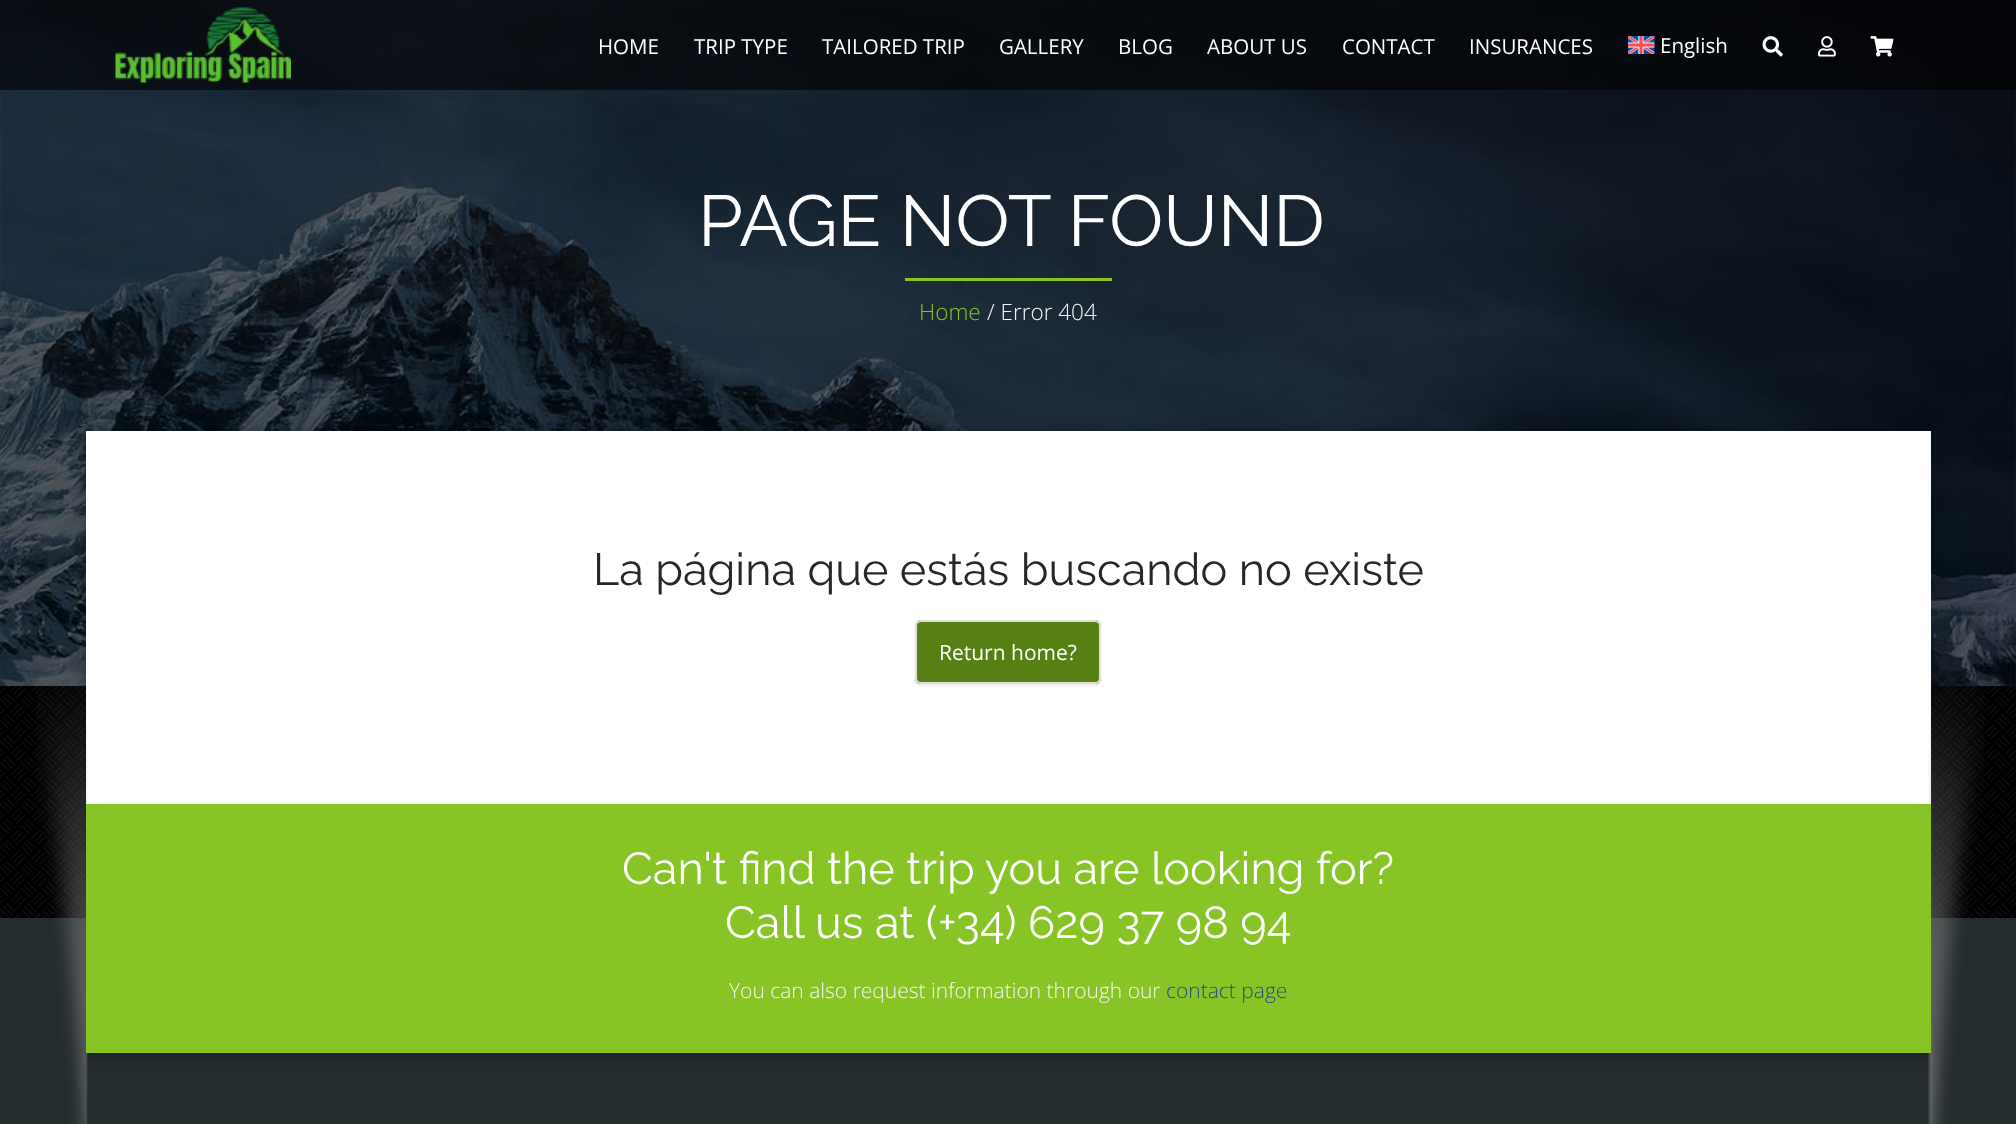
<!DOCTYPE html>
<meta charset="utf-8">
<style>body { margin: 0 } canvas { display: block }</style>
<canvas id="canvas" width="2016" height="1124"></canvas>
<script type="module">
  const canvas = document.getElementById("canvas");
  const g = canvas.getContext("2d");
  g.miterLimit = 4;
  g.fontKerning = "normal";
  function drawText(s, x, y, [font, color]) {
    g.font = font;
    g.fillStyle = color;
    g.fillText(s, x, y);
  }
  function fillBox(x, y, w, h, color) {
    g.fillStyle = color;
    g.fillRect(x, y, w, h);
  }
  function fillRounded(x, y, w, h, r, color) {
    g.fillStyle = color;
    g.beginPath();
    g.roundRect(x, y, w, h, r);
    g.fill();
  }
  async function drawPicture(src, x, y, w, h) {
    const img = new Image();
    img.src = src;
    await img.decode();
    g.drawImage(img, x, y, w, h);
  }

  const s1 = ["20.5px Open Sans", "#FFFFFF"];
  const s2 = ["100 72px Raleway", "#FFFFFF"];
  const s3 = ["300 22.5px Open Sans", "#88C425"];
  const s4 = ["300 22.5px Open Sans", "#F5F5F5"];
  const s5 = ["100 45px Raleway", "#272727"];
  const s6 = ["21px Open Sans", "#FFFFFF"];
  const s7 = ["100 45px Raleway", "#FFFFFF"];
  const s8 = ["300 21px Open Sans", "#F5F5F5"];
  const s9 = ["300 21px Open Sans", "#23527C"];

  fillBox(0, 0, 2016, 1124, "#FFFFFF");
  await drawPicture("pic1.png", 0, 686, 2016, 232);
  await drawPicture("pic7.png", 0, 0, 2016, 686);
  fillBox(0, 0, 2016, 90, "rgba(0, 0, 0, 0.6)");
  await drawPicture("pic2.png", 115, 7, 176, 76);
  drawText("HOME", 598, 54, s1);
  drawText("TRIP TYPE", 694, 54, s1);
  drawText("TAILORED TRIP", 822, 54, s1);
  drawText("GALLERY", 999, 54, s1);
  drawText("BLOG", 1118, 54, s1);
  drawText("ABOUT US", 1207, 54, s1);
  drawText("CONTACT", 1342, 54, s1);
  drawText("INSURANCES", 1469, 54, s1);
  await drawPicture("pic3.png", 1628, 36, 27, 18);
  drawText("English", 1660, 53, s1);
  await drawPicture("pic4.png", 1762, 36, 21, 21);
  await drawPicture("pic5.png", 1818, 36, 18, 21);
  await drawPicture("pic6.png", 1870, 36, 24, 21);
  drawText("PAGE NOT FOUND", 698, 246, s2);
  fillBox(905, 278, 207, 3, "#88C425");
  drawText("Home", 919, 320, s3);
  drawText("/ Error 404", 987, 320, s4);
  fillBox(0, 918, 2016, 206, "#252C2E");
  g.fillStyle = "rgba(0, 0, 0, 0.3)";
  g.filter = "blur(7.5px)";
  g.beginPath();
  g.rect(86, 432, 1845, 623);
  g.fill();
  g.filter = "none";
  fillBox(86, 431, 1845, 373, "#FFFFFF");
  drawText("La página que estás buscando no existe", 593, 585, s5);
  await drawPicture("pic8.png", 36, 673, 1948, 451);
  g.fillStyle = "rgba(0, 0, 0, 0.07)";
  g.filter = "blur(1px)";
  g.beginPath();
  g.roundRect(915, 621, 186, 65, 6);
  g.fill();
  g.filter = "none";
  fillRounded(915, 620, 186, 64, 6, "#568014");
  g.fillStyle = "#6F9337";
  g.beginPath();
  g.moveTo(921, 622);
  g.lineTo(1095, 622);
  g.bezierCurveTo(1097, 622, 1100, 625, 1100, 627);
  g.lineTo(1100, 626);
  g.bezierCurveTo(1100, 623, 1098, 621, 1095, 621);
  g.lineTo(922, 621);
  g.bezierCurveTo(920, 621, 918, 622, 917, 624);
  g.bezierCurveTo(918, 623, 920, 622, 921, 622);
  g.closePath();
  g.fill();
  g.beginPath();
  g.roundRect(916, 621, 184, 62, 5);
  g.strokeStyle = "#DEDEDE";
  g.lineWidth = 2;
  g.stroke();
  drawText("Return home?", 939, 660, s6);
  fillBox(86, 804, 1845, 249, "#88C425");
  drawText("Can't find the trip you are looking for?", 622, 884, s7);
  drawText("Call us at (+34) 629 37 98 94", 725, 938, s7);
  drawText("You can also request information through our", 729, 998, s8);
  drawText("contact page", 1166, 998, s9);
</script>
